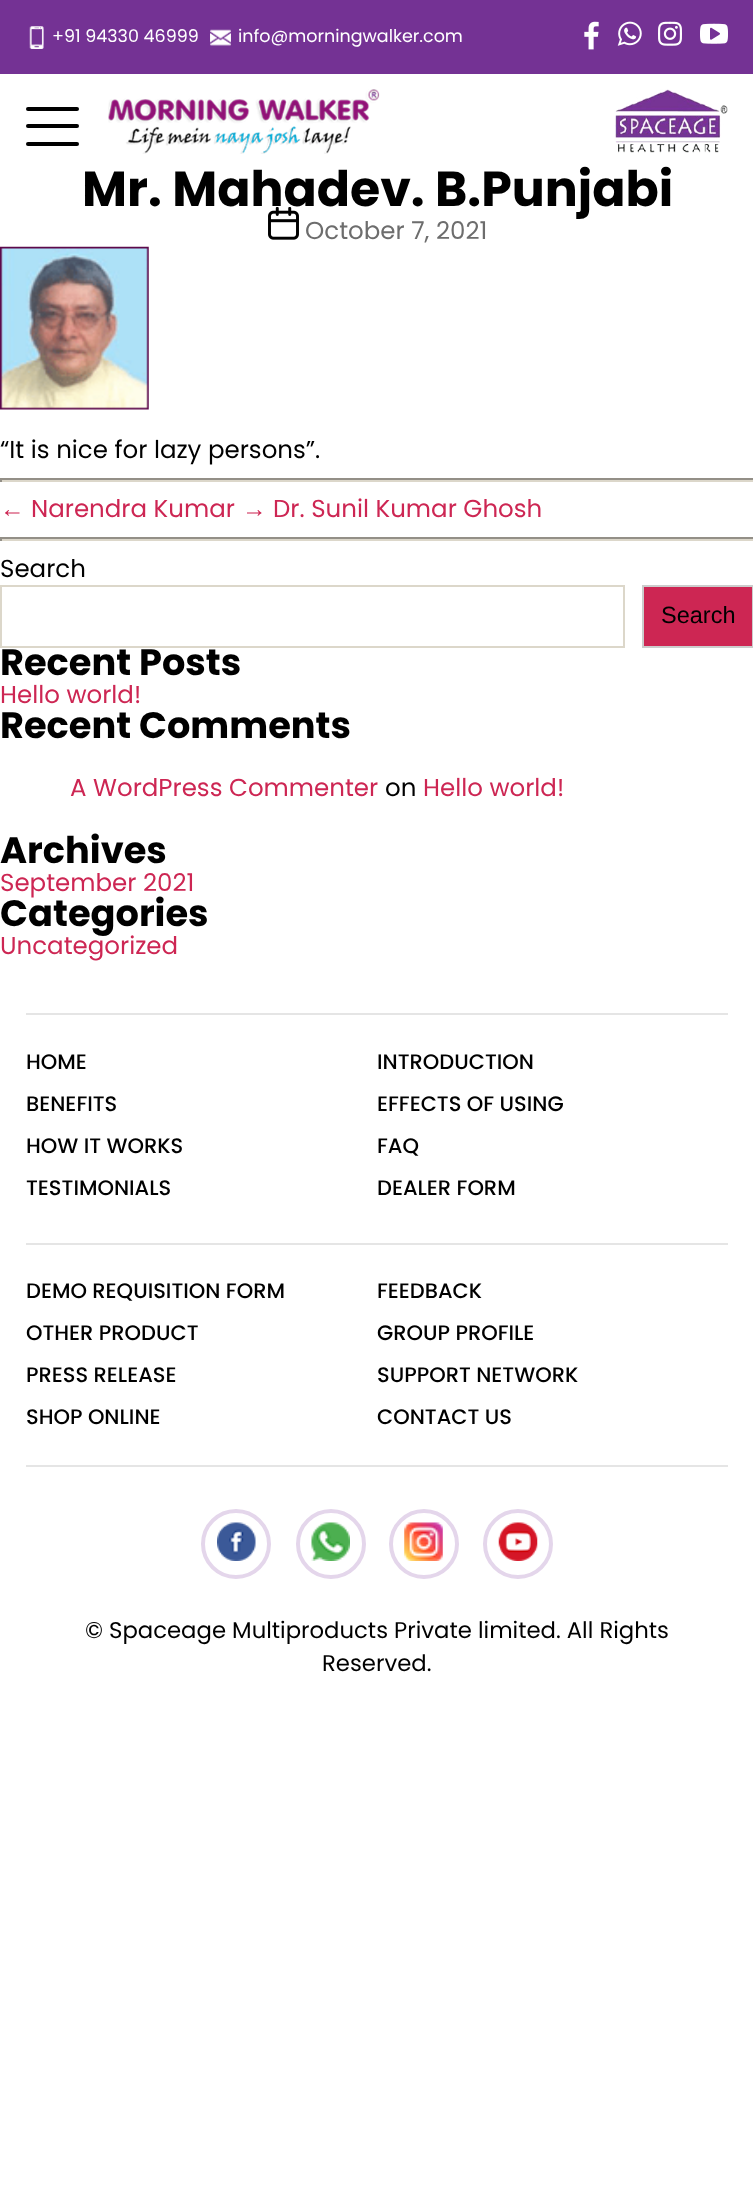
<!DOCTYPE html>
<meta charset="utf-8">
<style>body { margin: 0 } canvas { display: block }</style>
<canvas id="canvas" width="753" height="2189"></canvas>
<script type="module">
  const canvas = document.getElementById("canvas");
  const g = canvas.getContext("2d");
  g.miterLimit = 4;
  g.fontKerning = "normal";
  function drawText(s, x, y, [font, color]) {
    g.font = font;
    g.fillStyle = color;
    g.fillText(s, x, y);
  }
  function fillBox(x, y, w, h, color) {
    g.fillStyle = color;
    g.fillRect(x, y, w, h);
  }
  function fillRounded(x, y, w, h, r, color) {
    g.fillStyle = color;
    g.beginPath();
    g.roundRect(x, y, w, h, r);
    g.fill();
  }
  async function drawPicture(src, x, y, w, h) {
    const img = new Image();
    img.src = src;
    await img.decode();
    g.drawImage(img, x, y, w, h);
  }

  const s1 = ["17.5px Poppins", "#FFFFFF"];
  const s2 = ["bold 49px Poppins", "#000000"];
  const s3 = ["24.5px Poppins", "#6D6D6D"];
  const s4 = ["24.5px Poppins", "#000000"];
  const s5 = ["24.5px Liberation Sans", "#CD2653"];
  const s6 = ["24.5px Poppins", "#CD2653"];
  const s7 = ["23.5px Liberation Sans", "#000000"];
  const s8 = ["bold 36.75px Poppins", "#000000"];
  const s9 = ["500 21px Poppins", "#000000"];
  const s10 = ["22.75px Poppins", "#000000"];

  fillBox(0, 0, 753, 2189, "#FFFFFF");
  fillBox(0, 0, 753, 74, "#743294");
  await drawPicture("pic1.png", 29, 26, 15, 23);
  drawText("+91 94330 46999", 52, 42, s1);
  await drawPicture("pic2.png", 210, 29, 21, 17);
  drawText("info@morningwalker.com", 238, 42, s1);
  await drawPicture("pic3.png", 584, 21, 15, 29);
  await drawPicture("pic4.png", 617, 21, 25, 25);
  await drawPicture("pic5.png", 658, 21, 24, 25);
  await drawPicture("pic6.png", 700, 23, 28, 21);
  fillRounded(26, 107, 53, 4, 2, "#000000");
  fillRounded(26, 124, 53, 4, 2, "#000000");
  fillRounded(26, 142, 53, 4, 2, "#000000");
  await drawPicture("pic7.png", 108, 89, 272, 65);
  await drawPicture("pic8.png", 614, 89, 114, 64);
  drawText("Mr. Mahadev. B.Punjabi", 82, 206, s2);
  await drawPicture("pic9.png", 268, 207, 31, 33);
  drawText("October 7, 2021", 305, 239, s3);
  await drawPicture("pic10.png", 0, 246, 149, 164);
  drawText("“It is nice for lazy persons”.", 0, 458, s4);
  fillBox(0, 478, 753, 2, "#938F87");
  fillBox(0, 480, 753, 2, "#DCD7CA");
  fillBox(0, 478, 2, 4, "#938F87");
  drawText("←", 0, 517, s5);
  drawText("Narendra Kumar", 31, 517, s6);
  drawText("→", 242, 517, s5);
  drawText("Dr. Sunil Kumar Ghosh", 273, 517, s6);
  fillBox(0, 537, 753, 2, "#938F87");
  fillBox(0, 539, 753, 2, "#DCD7CA");
  fillBox(0, 537, 2, 4, "#938F87");
  drawText("Search", 0, 577, s4);
  g.strokeStyle = "#DCD7CA";
  g.lineWidth = 2;
  g.strokeRect(1, 586, 623, 61);
  g.fillStyle = "#CD2653";
  g.beginPath();
  g.rect(643, 586, 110, 61);
  g.fill();
  g.strokeStyle = "#CCCCCC";
  g.stroke();
  drawText("Search", 661, 623, s7);
  drawText("Recent Posts", 0, 675, s8);
  drawText("Hello world!", 0, 703, s6);
  drawText("Recent Comments", 0, 738, s8);
  drawText("A WordPress Commenter", 70, 796, s6);
  drawText("on", 385, 796, s4);
  drawText("Hello world!", 423, 796, s6);
  drawText("Archives", 0, 863, s8);
  drawText("September 2021", 0, 891, s6);
  drawText("Categories", 0, 926, s8);
  drawText("Uncategorized", 0, 954, s6);
  fillBox(26, 1013, 702, 2, "#E5E5E5");
  drawText("HOME", 26, 1069, s9);
  drawText("INTRODUCTION", 377, 1069, s9);
  drawText("BENEFITS", 26, 1111, s9);
  drawText("EFFECTS OF USING", 377, 1111, s9);
  drawText("HOW IT WORKS", 26, 1153, s9);
  drawText("FAQ", 377, 1153, s9);
  drawText("TESTIMONIALS", 26, 1195, s9);
  drawText("DEALER FORM", 377, 1195, s9);
  fillBox(26, 1243, 702, 2, "#E5E5E5");
  fillBox(26, 1465, 702, 2, "#E5E5E5");
  drawText("DEMO REQUISITION FORM", 26, 1298, s9);
  drawText("FEEDBACK", 377, 1298, s9);
  drawText("OTHER PRODUCT", 26, 1340, s9);
  drawText("GROUP PROFILE", 377, 1340, s9);
  drawText("PRESS RELEASE", 26, 1382, s9);
  drawText("SUPPORT NETWORK", 377, 1382, s9);
  drawText("SHOP ONLINE", 26, 1424, s9);
  drawText("CONTACT US", 377, 1424, s9);
  g.beginPath();
  g.arc(236, 1544, 33, 0, Math.PI * 2);
  g.strokeStyle = "#E4D6EB";
  g.lineWidth = 4;
  g.stroke();
  await drawPicture("pic11.png", 217, 1522, 39, 39);
  g.beginPath();
  g.arc(331, 1544, 33, 0, Math.PI * 2);
  g.stroke();
  await drawPicture("pic12.png", 311, 1522, 39, 39);
  g.beginPath();
  g.arc(424, 1544, 33, 0, Math.PI * 2);
  g.stroke();
  await drawPicture("pic13.png", 404, 1522, 39, 39);
  g.beginPath();
  g.arc(518, 1544, 33, 0, Math.PI * 2);
  g.stroke();
  await drawPicture("pic14.png", 498, 1522, 40, 39);
  drawText("© Spaceage Multiproducts Private limited. All Rights", 85, 1638, s10);
  drawText("Reserved.", 322, 1671, s10);
</script>
